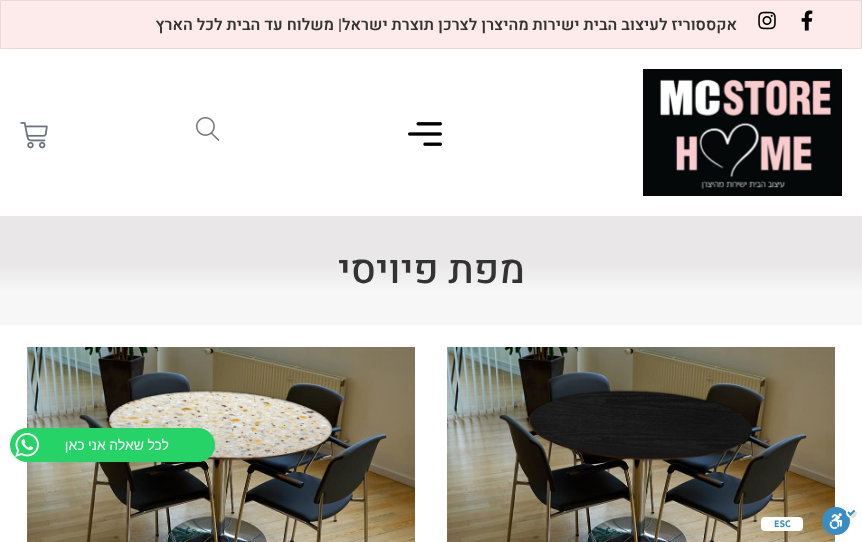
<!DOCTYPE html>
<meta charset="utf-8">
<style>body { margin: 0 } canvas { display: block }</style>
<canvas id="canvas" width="862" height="542"></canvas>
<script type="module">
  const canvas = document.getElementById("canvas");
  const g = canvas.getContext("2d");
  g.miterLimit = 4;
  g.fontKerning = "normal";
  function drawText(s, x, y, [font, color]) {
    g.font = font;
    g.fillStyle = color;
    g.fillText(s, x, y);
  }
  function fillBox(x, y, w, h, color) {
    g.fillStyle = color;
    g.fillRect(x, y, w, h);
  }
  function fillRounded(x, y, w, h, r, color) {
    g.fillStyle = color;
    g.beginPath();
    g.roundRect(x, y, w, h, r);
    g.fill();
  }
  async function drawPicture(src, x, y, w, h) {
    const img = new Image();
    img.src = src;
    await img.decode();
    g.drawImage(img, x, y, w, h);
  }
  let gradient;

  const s1 = ["600 16px Heebo", "#333333"];
  const s2 = ["500 40px Heebo", "#333333"];
  const s3 = ["14px Liberation Sans", "#FFFFFF"];
  const s4 = ["bold 10px Assistant", "#3A8DC2"];

  fillBox(0, 0, 862, 542, "#FFFFFF");
  g.fillStyle = "#FDEBEB";
  g.beginPath();
  g.rect(0.5, 0.5, 861, 48);
  g.fill();
  g.strokeStyle = "#E9D9D9";
  g.stroke();
  await drawPicture("pic1.png", 801, 10, 12, 21);
  await drawPicture("pic2.png", 758, 11, 18, 19);
  g.direction = "rtl";
  drawText("אקססוריז לעיצוב הבית ישירות מהיצרן לצרכן תוצרת ישראל| משלוח עד הבית לכל הארץ", 737, 30, s1);
  g.save();
  g.beginPath();
  g.rect(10, 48, 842, 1);
  g.clip();
  g.fillStyle = "rgba(0, 0, 0, 0.5)";
  g.filter = "blur(5px)";
  g.beginPath();
  g.rect(3, 57, 856, 161);
  g.fill();
  g.filter = "none";
  g.restore();
  await drawPicture("pic3.png", 643, 69, 199, 127);
  await drawPicture("pic4.png", 408, 122, 34, 24);
  await drawPicture("pic5.png", 196, 117, 23, 24);
  await drawPicture("pic6.png", 20, 122, 28, 27);
  gradient = g.createLinearGradient(431, 216, 431, 325);
  gradient.addColorStop(0.43, "#E9E7E7");
  gradient.addColorStop(0.69, "#F7F7F7");
  g.fillStyle = gradient;
  g.fillRect(0, 216, 862, 109);
  drawText("מפת פיויסי", 525, 283, s2);
  await drawPicture("pic7.png", 447, 347, 388, 195);
  await drawPicture("pic8.png", 27, 347, 388, 195);
  fillRounded(10, 428, 205, 34, 17, "#25D366");
  g.wordSpacing = "-0.5px";
  drawText("לכל שאלה אני כאן", 169, 450, s3);
  await drawPicture("pic9.png", 15, 433, 24, 24);
  await drawPicture("pic10.png", 822, 507, 35, 28);
  fillRounded(761, 517, 42, 14, 4, "#FFFFFF");
  g.wordSpacing = "0px";
  g.direction = "ltr";
  drawText("ESC", 774, 527, s4);
</script>
